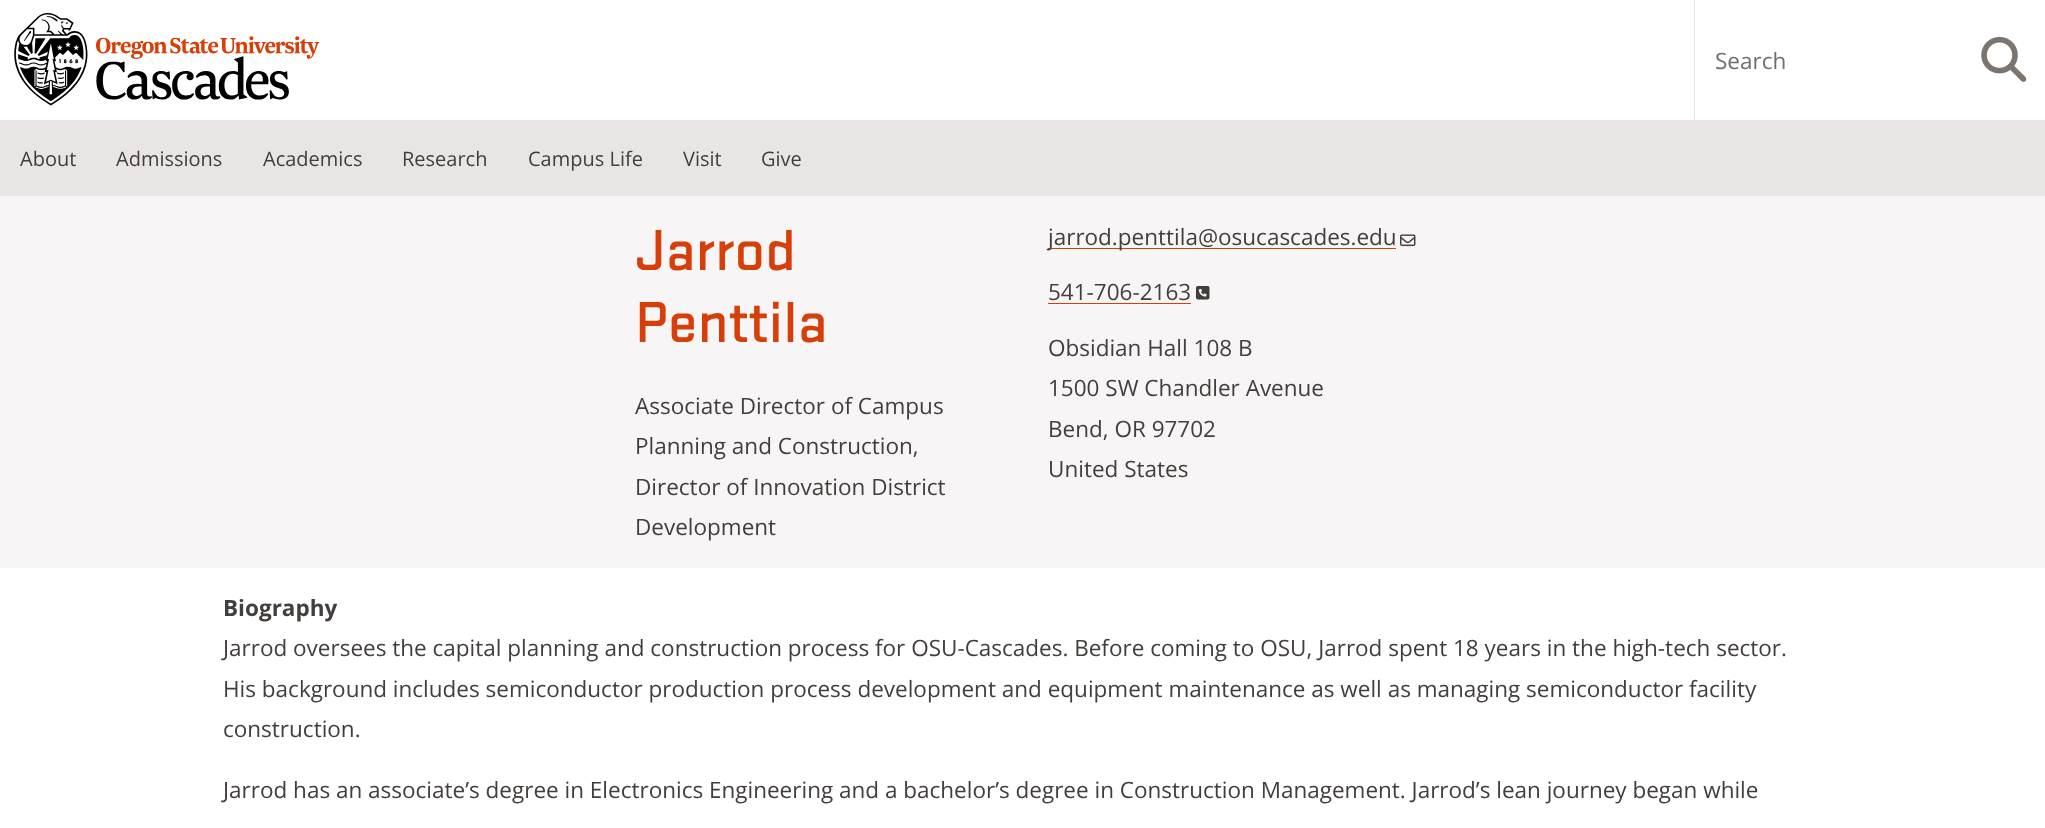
<!DOCTYPE html>
<meta charset="utf-8">
<style>body { margin: 0 } canvas { display: block }</style>
<canvas id="canvas" width="2045" height="828"></canvas>
<script type="module">
  const canvas = document.getElementById("canvas");
  const g = canvas.getContext("2d");
  g.miterLimit = 4;
  g.fontKerning = "normal";
  function drawText(s, x, y, [font, color]) {
    g.font = font;
    g.fillStyle = color;
    g.fillText(s, x, y);
  }
  function fillBox(x, y, w, h, color) {
    g.fillStyle = color;
    g.fillRect(x, y, w, h);
  }
  async function drawPicture(src, x, y, w, h) {
    const img = new Image();
    img.src = src;
    await img.decode();
    g.drawImage(img, x, y, w, h);
  }

  const s1 = ["22.5px Open Sans", "#716E6D"];
  const s2 = ["20px Open Sans", "#423E3C"];
  const s3 = ["500 60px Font", "#D73F09"];
  const s4 = ["22.5px Open Sans", "#423E3C"];
  const s5 = ["bold 22.5px Open Sans", "#423E3C"];

  fillBox(0, 0, 2045, 828, "#F7F5F5");
  fillBox(0, 0, 2045, 120, "#FFFFFF");
  fillBox(0, 120, 2045, 76, "#E9E5E4");
  await drawPicture("pic1.png", 14, 13, 306, 93);
  fillBox(1694, 0, 1, 120, "#E9E5E4");
  drawText("Search", 1715, 69, s1);
  await drawPicture("pic2.png", 1981, 36, 46, 46);
  drawText("About", 20, 166, s2);
  drawText("Admissions", 116, 166, s2);
  drawText("Academics", 263, 166, s2);
  drawText("Research", 402, 166, s2);
  drawText("Campus Life", 528, 166, s2);
  drawText("Visit", 683, 166, s2);
  drawText("Give", 761, 166, s2);
  drawText("Jarrod", 635, 270, s3);
  drawText("Penttila", 635, 342, s3);
  drawText("Associate Director of Campus", 635, 414, s4);
  drawText("Planning and Construction,", 635, 454, s4);
  drawText("Director of Innovation District", 635, 495, s4);
  drawText("Development", 635, 535, s4);
  fillBox(1048, 248, 348, 1, "#D73F09");
  drawText("jarrod.penttila@osucascades.edu", 1048, 245, s4);
  await drawPicture("pic3.png", 1400, 234, 16, 13);
  drawText("541-706-2163", 1048, 300, s4);
  fillBox(1048, 303, 143, 1, "#D73F09");
  await drawPicture("pic4.png", 1195, 286, 15, 14);
  drawText("Obsidian Hall 108 B", 1048, 356, s4);
  drawText("1500 SW Chandler Avenue", 1048, 396, s4);
  drawText("Bend, OR 97702", 1048, 437, s4);
  drawText("United States", 1048, 477, s4);
  fillBox(0, 568, 2045, 260, "#FFFFFF");
  drawText("Biography", 223, 616, s5);
  drawText("Jarrod oversees the capital planning and construction process for OSU-Cascades. Before coming to OSU, Jarrod spent 18 years in the high-tech sector.", 223, 656, s4);
  drawText("His background includes semiconductor production process development and equipment maintenance as well as managing semiconductor facility", 223, 697, s4);
  drawText("construction.", 223, 737, s4);
  drawText("Jarrod has an associate’s degree in Electronics Engineering and a bachelor’s degree in Construction Management. Jarrod’s lean journey began while", 223, 798, s4);
</script>
